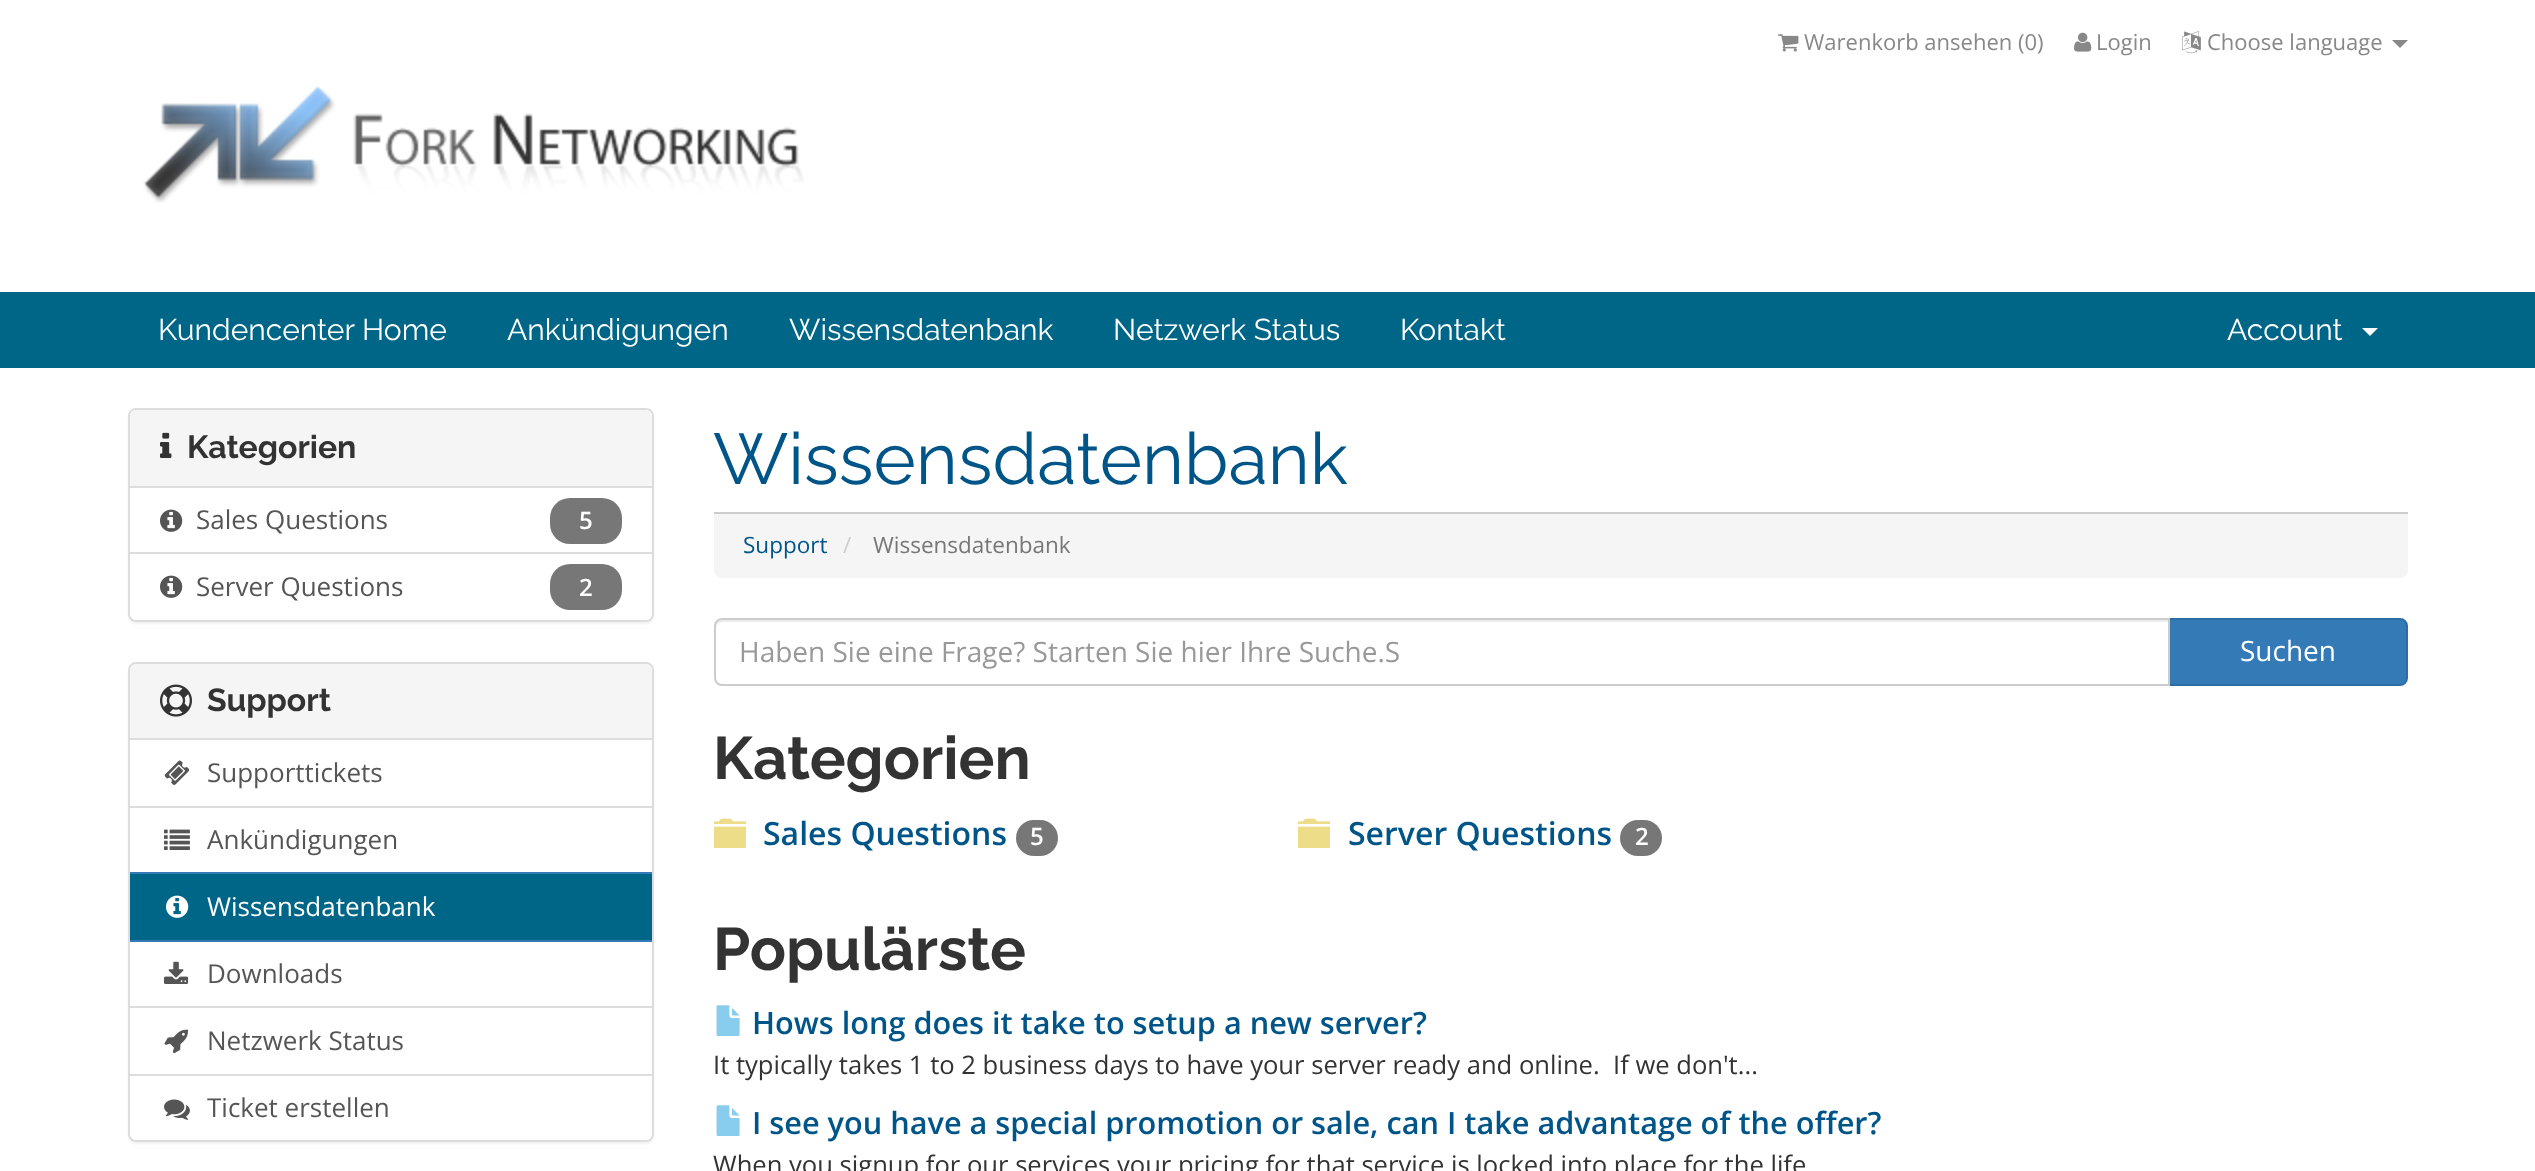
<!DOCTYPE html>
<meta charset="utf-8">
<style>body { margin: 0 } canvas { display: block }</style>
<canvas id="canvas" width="2535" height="1171"></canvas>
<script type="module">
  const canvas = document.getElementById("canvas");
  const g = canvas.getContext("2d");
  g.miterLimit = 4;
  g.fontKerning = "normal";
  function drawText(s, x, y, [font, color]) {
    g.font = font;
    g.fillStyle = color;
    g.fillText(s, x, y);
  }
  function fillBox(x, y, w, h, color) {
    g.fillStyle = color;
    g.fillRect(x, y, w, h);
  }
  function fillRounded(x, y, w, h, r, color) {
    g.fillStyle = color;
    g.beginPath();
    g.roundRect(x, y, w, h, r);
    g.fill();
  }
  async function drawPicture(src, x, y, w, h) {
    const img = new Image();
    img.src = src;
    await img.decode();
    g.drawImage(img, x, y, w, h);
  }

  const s1 = ["22px Open Sans", "#888888"];
  const s2 = ["30px Raleway", "#FFFFFF"];
  const s3 = ["bold 32px Raleway", "#333333"];
  const s4 = ["26px Open Sans", "#555555"];
  const s5 = ["600 24px Open Sans", "#FFFFFF"];
  const s6 = ["72px Raleway", "#005588"];
  const s7 = ["22.5px Open Sans", "#005588"];
  const s8 = ["22.5px Open Sans", "#CCCCCC"];
  const s9 = ["22.5px Open Sans", "#777777"];
  const s10 = ["26px Open Sans", "#FFFFFF"];
  const s11 = ["28px Open Sans", "#999999"];
  const s12 = ["28px Open Sans", "#FFFFFF"];
  const s13 = ["bold 60px Raleway", "#333333"];
  const s14 = ["600 32px Open Sans", "#005588"];
  const s15 = ["600 30.7px Open Sans", "#005588"];
  const s16 = ["25.6px Open Sans", "#333333"];

  fillBox(0, 0, 2535, 1171, "#FFFFFF");
  await drawPicture("pic1.png", 1778, 34, 21, 18);
  drawText("Warenkorb ansehen (0)", 1804, 50, s1);
  await drawPicture("pic2.png", 2074, 32, 18, 20);
  drawText("Login", 2096, 50, s1);
  await drawPicture("pic3.png", 2182, 31, 19, 23);
  drawText("Choose language", 2207, 50, s1);
  g.beginPath();
  g.moveTo(2392, 40);
  g.lineTo(2408, 40);
  g.lineTo(2400, 48);
  g.closePath();
  g.fill();
  await drawPicture("pic4.png", 143, 86, 661, 117);
  fillBox(0, 292, 2535, 76, "#006687");
  drawText("Kundencenter Home", 158, 340, s2);
  drawText("Ankündigungen", 507, 340, s2);
  drawText("Wissensdatenbank", 789, 340, s2);
  drawText("Netzwerk Status", 1113, 340, s2);
  drawText("Kontakt", 1400, 340, s2);
  drawText("Account", 2227, 340, s2);
  g.beginPath();
  g.moveTo(2362, 328);
  g.lineTo(2378, 328);
  g.lineTo(2370, 336);
  g.closePath();
  g.fill();
  g.fillStyle = "rgba(0, 0, 0, 0.05)";
  g.filter = "blur(1px)";
  g.beginPath();
  g.roundRect(128, 410, 526, 214, 8);
  g.fill();
  g.filter = "none";
  g.fillStyle = "#FFFFFF";
  g.beginPath();
  g.roundRect(129, 409, 524, 212, 7);
  g.fill();
  g.strokeStyle = "#DDDDDD";
  g.lineWidth = 2;
  g.stroke();
  g.fillStyle = "#F5F5F5";
  g.beginPath();
  g.roundRect(130, 410, 522, 78, [6, 6, 0, 0]);
  g.fill();
  fillBox(130, 486, 522, 2, "#DDDDDD");
  await drawPicture("pic5.png", 160, 432, 12, 26);
  drawText("Kategorien", 187, 458, s3);
  await drawPicture("pic6.png", 160, 509, 23, 23);
  drawText("Sales Questions", 196, 529, s4);
  fillRounded(550, 498, 72, 46, 20, "#777777");
  drawText("5", 579, 529, s5);
  g.beginPath();
  g.roundRect(130, 552, 522, 68, [0, 0, 6, 6]);
  g.fill();
  fillBox(130, 552, 522, 2, "#DDDDDD");
  await drawPicture("pic6.png", 160, 575, 23, 23);
  drawText("Server Questions", 196, 596, s4);
  fillRounded(550, 564, 72, 46, 20, "#777777");
  drawText("2", 579, 596, s5);
  fillBox(714, 512, 1694, 2, "#CCCCCC");
  drawText("Wissensdatenbank", 713, 484, s6);
  g.fillStyle = "#F5F5F5";
  g.beginPath();
  g.roundRect(714, 514, 1694, 64, [0, 0, 8, 8]);
  g.fill();
  drawText("Support", 743, 553, s7);
  drawText("/", 843, 553, s8);
  drawText("Wissensdatenbank", 873, 553, s9);
  g.fillStyle = "rgba(0, 0, 0, 0.05)";
  g.filter = "blur(1px)";
  g.beginPath();
  g.roundRect(128, 664, 526, 480, 8);
  g.fill();
  g.filter = "none";
  g.fillStyle = "#FFFFFF";
  g.beginPath();
  g.roundRect(129, 663, 524, 478, 7);
  g.fill();
  g.stroke();
  g.fillStyle = "#F5F5F5";
  g.beginPath();
  g.roundRect(130, 664, 522, 76, [6, 6, 0, 0]);
  g.fill();
  fillBox(130, 738, 522, 2, "#DDDDDD");
  await drawPicture("pic7.png", 160, 684, 32, 33);
  drawText("Support", 207, 711, s3);
  fillBox(130, 806, 522, 2, "#DDDDDD");
  await drawPicture("pic8.png", 164, 760, 26, 25);
  drawText("Supporttickets", 207, 782, s4);
  await drawPicture("pic9.png", 164, 829, 26, 21);
  drawText("Ankündigungen", 207, 849, s4);
  fillBox(130, 874, 522, 66, "#006687");
  fillBox(130, 872, 522, 2, "#337AB7");
  fillBox(130, 940, 522, 2, "#337AB7");
  await drawPicture("pic10.png", 166, 895, 23, 23);
  drawText("Wissensdatenbank", 207, 916, s10);
  fillBox(130, 1006, 522, 2, "#DDDDDD");
  await drawPicture("pic11.png", 164, 961, 25, 23);
  drawText("Downloads", 207, 983, s4);
  await drawPicture("pic12.png", 164, 1029, 25, 25);
  drawText("Netzwerk Status", 207, 1050, s4);
  g.fillStyle = "#FFFFFF";
  g.beginPath();
  g.roundRect(130, 1074, 522, 66, [0, 0, 6, 6]);
  g.fill();
  fillBox(130, 1074, 522, 2, "#DDDDDD");
  await drawPicture("pic13.png", 164, 1099, 26, 21);
  drawText("Ticket erstellen", 207, 1117, s4);
  g.fillStyle = "#337AB7";
  g.beginPath();
  g.roundRect(2169, 619, 238, 66, [0, 7, 7, 0]);
  g.fill();
  g.strokeStyle = "#2E6DA4";
  g.stroke();
  g.fillStyle = "#FFFFFF";
  g.beginPath();
  g.roundRect(714, 618, 1456, 68, [8, 0, 0, 8]);
  g.fill();
  g.fillStyle = "#ECECEC";
  g.beginPath();
  g.moveTo(722, 622);
  g.lineTo(2168, 622);
  g.lineTo(2168, 620);
  g.lineTo(722, 620);
  g.bezierCurveTo(717, 620, 716, 624, 716, 628);
  g.bezierCurveTo(716, 625, 719, 622, 722, 622);
  g.closePath();
  g.fill();
  g.beginPath();
  g.roundRect(715, 619, 1454, 66, [7, 0, 0, 7]);
  g.strokeStyle = "#CCCCCC";
  g.stroke();
  drawText("Haben Sie eine Frage? Starten Sie hier Ihre Suche.S", 739, 662, s11);
  drawText("Suchen", 2240, 661, s12);
  drawText("Kategorien", 713, 779, s13);
  await drawPicture("pic14.png", 714, 818, 32, 30);
  drawText("Sales Questions", 763, 845, s14);
  fillRounded(1016, 820, 42, 36, 18, "#777777");
  drawText("5", 1030, 845, s5);
  await drawPicture("pic14.png", 1298, 818, 32, 30);
  drawText("Server Questions", 1348, 845, s14);
  fillRounded(1620, 820, 42, 36, 18, "#777777");
  drawText("2", 1635, 845, s5);
  drawText("Populärste", 713, 970, s13);
  await drawPicture("pic15.png", 716, 1005, 24, 31);
  drawText("Hows long does it take to setup a new server?", 752, 1034, s15);
  drawText("It typically takes 1 to 2 business days to have your server ready and online.  If we don't...", 713, 1074, s16);
  await drawPicture("pic15.png", 716, 1105, 24, 31);
  drawText("I see you have a special promotion or sale, can I take advantage of the offer?", 752, 1134, s15);
  drawText("When you signup for our services your pricing for that service is locked into place for the life", 713, 1174, s16);
</script>
